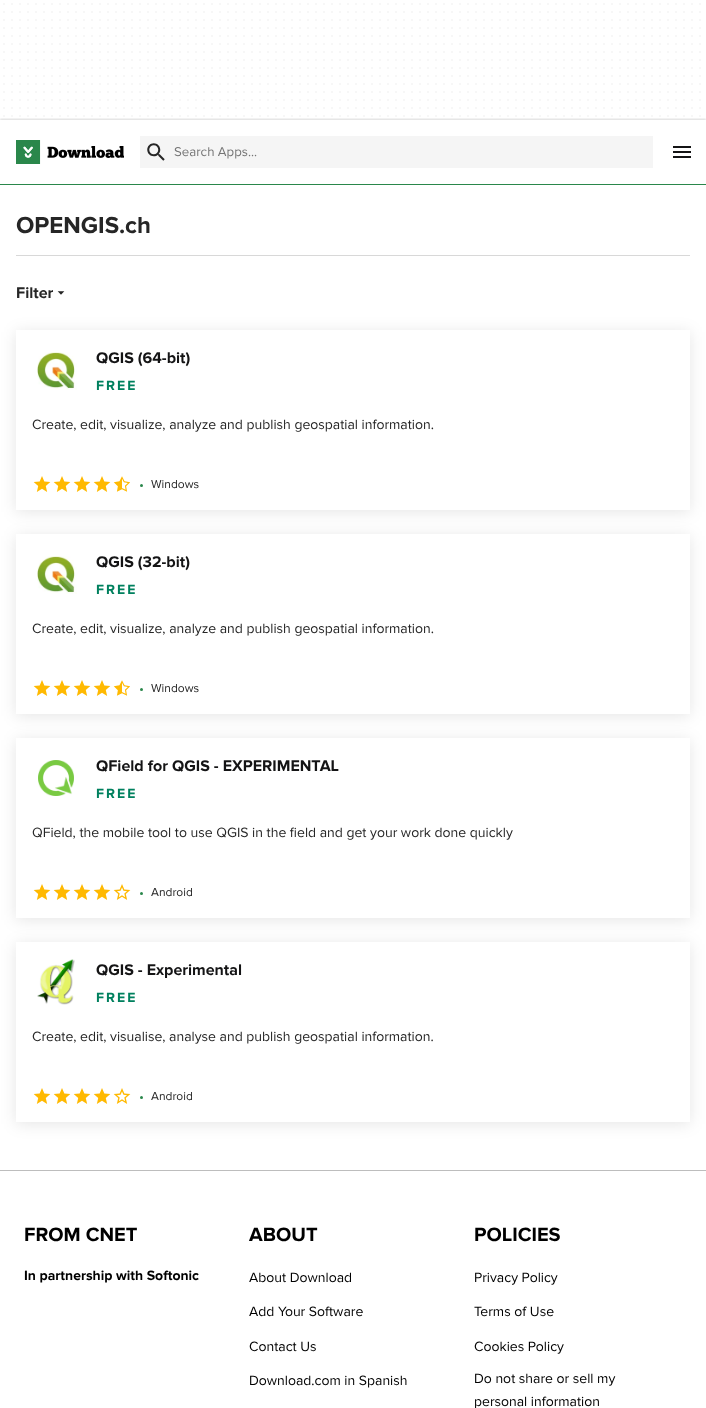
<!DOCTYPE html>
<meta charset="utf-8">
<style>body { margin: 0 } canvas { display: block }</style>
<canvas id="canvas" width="706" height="1408"></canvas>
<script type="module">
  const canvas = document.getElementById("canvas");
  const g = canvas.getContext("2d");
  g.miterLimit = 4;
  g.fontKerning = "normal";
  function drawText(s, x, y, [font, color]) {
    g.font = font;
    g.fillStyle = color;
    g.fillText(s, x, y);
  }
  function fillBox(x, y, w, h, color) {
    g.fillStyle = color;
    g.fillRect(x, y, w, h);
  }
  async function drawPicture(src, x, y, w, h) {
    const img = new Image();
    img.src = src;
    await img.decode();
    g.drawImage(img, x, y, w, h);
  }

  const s1 = ["13.25px Proxima Nova", "#757575"];
  const s2 = ["bold 24px Proxima Nova", "#262626"];
  const s3 = ["bold 16px Proxima Nova", "#262626"];
  const s4 = ["bold 16px Proxima Nova", "#141415"];
  const s5 = ["bold 14px Proxima Nova", "#00805E"];
  const s6 = ["14px Proxima Nova", "#262626"];
  const s7 = ["12px Proxima Nova", "#262626"];
  const s8 = ["bold 20px Proxima Nova", "#000000"];
  const s9 = ["bold 14px Proxima Nova", "#000000"];
  const s10 = ["14px Proxima Nova", "#000000"];

  fillBox(0, 0, 706, 1408, "#FFFFFF");
  g.beginPath();
  g.moveTo(-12, 4);
  g.lineTo(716.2, 4);
  g.strokeStyle = "#F5F5F5";
  g.lineWidth = 2;
  g.lineCap = "round";
  g.setLineDash([0, 8]);
  g.stroke();
  g.beginPath();
  g.moveTo(-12, 12);
  g.lineTo(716.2, 12);
  g.stroke();
  g.beginPath();
  g.moveTo(-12, 20);
  g.lineTo(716.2, 20);
  g.stroke();
  g.beginPath();
  g.moveTo(-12, 28);
  g.lineTo(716.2, 28);
  g.stroke();
  g.beginPath();
  g.moveTo(-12, 36);
  g.lineTo(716.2, 36);
  g.stroke();
  g.beginPath();
  g.moveTo(-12, 44);
  g.lineTo(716.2, 44);
  g.stroke();
  g.beginPath();
  g.moveTo(-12, 52);
  g.lineTo(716.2, 52);
  g.stroke();
  g.beginPath();
  g.moveTo(-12, 60);
  g.lineTo(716.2, 60);
  g.stroke();
  g.beginPath();
  g.moveTo(-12, 68);
  g.lineTo(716.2, 68);
  g.stroke();
  g.beginPath();
  g.moveTo(-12, 76);
  g.lineTo(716.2, 76);
  g.stroke();
  g.beginPath();
  g.moveTo(-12, 84);
  g.lineTo(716.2, 84);
  g.stroke();
  g.beginPath();
  g.moveTo(-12, 92);
  g.lineTo(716.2, 92);
  g.stroke();
  g.beginPath();
  g.moveTo(-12, 100);
  g.lineTo(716.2, 100);
  g.stroke();
  g.beginPath();
  g.moveTo(-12, 108);
  g.lineTo(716.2, 108);
  g.stroke();
  g.beginPath();
  g.moveTo(-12, 116);
  g.lineTo(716.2, 116);
  g.stroke();
  g.save();
  g.beginPath();
  g.rect(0, 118, 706, 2);
  g.clip();
  g.fillStyle = "rgba(0, 0, 0, 0.15)";
  g.filter = "blur(1px)";
  g.beginPath();
  g.rect(0, 119, 706, 65);
  g.fill();
  g.filter = "none";
  g.restore();
  fillBox(0, 184, 706, 1, "#2A874B");
  await drawPicture("pic1.png", 16, 140, 108, 24);
  fillBox(140, 136, 513, 32, "#F5F5F5");
  await drawPicture("pic2.png", 147, 143, 18, 18);
  drawText("Search Apps...", 174, 156, s1);
  await drawPicture("pic3.png", 673, 146, 18, 12);
  drawText("OPENGIS.ch", 16, 233, s2);
  fillBox(16, 255, 674, 1, "#D8D8D8");
  drawText("Filter", 16, 298, s3);
  await drawPicture("pic4.png", 57, 291, 8, 4);
  g.save();
  g.beginPath();
  g.moveTo(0, 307);
  g.lineTo(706, 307);
  g.lineTo(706, 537);
  g.lineTo(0, 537);
  g.closePath();
  g.moveTo(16, 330);
  g.lineTo(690, 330);
  g.lineTo(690, 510);
  g.lineTo(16, 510);
  g.closePath();
  g.clip("evenodd");
  g.fillStyle = "rgba(0, 0, 0, 0.1)";
  g.filter = "blur(8px)";
  g.beginPath();
  g.rect(16, 332, 674, 180);
  g.fill();
  g.filter = "none";
  g.restore();
  await drawPicture("pic5.png", 37, 352, 40, 38);
  drawText("QGIS (64-bit)", 96, 363, s4);
  g.letterSpacing = "2px";
  drawText("FREE", 96, 390, s5);
  g.letterSpacing = "0px";
  drawText("Create, edit, visualize, analyze and publish geospatial information.", 32, 429, s6);
  await drawPicture("pic6.png", 33, 476, 97, 16);
  g.fillStyle = "#2A874B";
  g.beginPath();
  g.arc(141.5, 485.5, 1.5, 0, Math.PI * 2);
  g.fill();
  drawText("Windows", 151, 488, s7);
  g.save();
  g.beginPath();
  g.moveTo(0, 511);
  g.lineTo(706, 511);
  g.lineTo(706, 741);
  g.lineTo(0, 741);
  g.closePath();
  g.moveTo(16, 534);
  g.lineTo(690, 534);
  g.lineTo(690, 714);
  g.lineTo(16, 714);
  g.closePath();
  g.clip("evenodd");
  g.fillStyle = "rgba(0, 0, 0, 0.1)";
  g.filter = "blur(8px)";
  g.beginPath();
  g.rect(16, 536, 674, 180);
  g.fill();
  g.filter = "none";
  g.restore();
  await drawPicture("pic7.png", 37, 556, 40, 38);
  drawText("QGIS (32-bit)", 96, 567, s4);
  g.letterSpacing = "2px";
  drawText("FREE", 96, 594, s5);
  g.letterSpacing = "0px";
  drawText("Create, edit, visualize, analyze and publish geospatial information.", 32, 633, s6);
  await drawPicture("pic6.png", 33, 680, 97, 16);
  g.fillStyle = "#2A874B";
  g.beginPath();
  g.arc(141.5, 689.5, 1.5, 0, Math.PI * 2);
  g.fill();
  drawText("Windows", 151, 692, s7);
  g.save();
  g.beginPath();
  g.moveTo(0, 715);
  g.lineTo(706, 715);
  g.lineTo(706, 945);
  g.lineTo(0, 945);
  g.closePath();
  g.moveTo(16, 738);
  g.lineTo(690, 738);
  g.lineTo(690, 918);
  g.lineTo(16, 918);
  g.closePath();
  g.clip("evenodd");
  g.fillStyle = "rgba(0, 0, 0, 0.1)";
  g.filter = "blur(8px)";
  g.beginPath();
  g.rect(16, 740, 674, 180);
  g.fill();
  g.filter = "none";
  g.restore();
  await drawPicture("pic8.png", 38, 760, 36, 36);
  drawText("QField for QGIS - EXPERIMENTAL", 96, 771, s4);
  g.letterSpacing = "2px";
  drawText("FREE", 96, 798, s5);
  g.letterSpacing = "0px";
  drawText("QField, the mobile tool to use QGIS in the field and get your work done quickly", 32, 837, s6);
  await drawPicture("pic9.png", 33, 884, 98, 16);
  g.fillStyle = "#2A874B";
  g.beginPath();
  g.arc(141.5, 893.5, 1.5, 0, Math.PI * 2);
  g.fill();
  drawText("Android", 151, 896, s7);
  g.save();
  g.beginPath();
  g.moveTo(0, 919);
  g.lineTo(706, 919);
  g.lineTo(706, 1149);
  g.lineTo(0, 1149);
  g.closePath();
  g.moveTo(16, 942);
  g.lineTo(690, 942);
  g.lineTo(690, 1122);
  g.lineTo(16, 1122);
  g.closePath();
  g.clip("evenodd");
  g.fillStyle = "rgba(0, 0, 0, 0.1)";
  g.filter = "blur(8px)";
  g.beginPath();
  g.rect(16, 944, 674, 180);
  g.fill();
  g.filter = "none";
  g.restore();
  await drawPicture("pic10.png", 37, 959, 38, 46);
  drawText("QGIS - Experimental", 96, 975, s4);
  g.letterSpacing = "2px";
  drawText("FREE", 96, 1002, s5);
  g.letterSpacing = "0px";
  drawText("Create, edit, visualise, analyse and publish geospatial information.", 32, 1041, s6);
  await drawPicture("pic9.png", 33, 1088, 98, 16);
  g.fillStyle = "#2A874B";
  g.beginPath();
  g.arc(141.5, 1097.5, 1.5, 0, Math.PI * 2);
  g.fill();
  drawText("Android", 151, 1100, s7);
  fillBox(0, 1170, 706, 1, "#BDBDBD");
  drawText("FROM CNET", 24, 1241, s8);
  drawText("In partnership with Softonic", 24, 1280, s9);
  drawText("ABOUT", 249, 1241, s8);
  drawText("About Download", 249, 1282, s10);
  drawText("Add Your Software", 249, 1316, s10);
  drawText("Contact Us", 249, 1351, s10);
  drawText("Download.com in Spanish", 249, 1385, s10);
  drawText("POLICIES", 474, 1241, s8);
  drawText("Privacy Policy", 474, 1282, s10);
  drawText("Terms of Use", 474, 1316, s10);
  drawText("Cookies Policy", 474, 1351, s10);
  drawText("Do not share or sell my", 474, 1383, s10);
  drawText("personal information", 474, 1406, s10);
</script>
